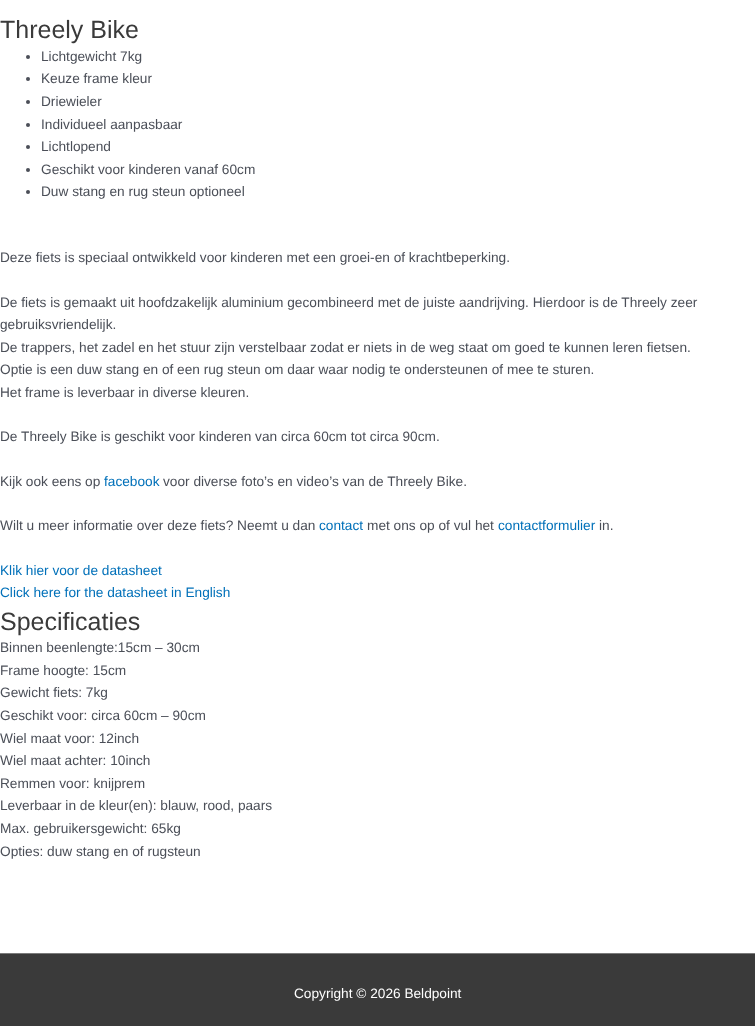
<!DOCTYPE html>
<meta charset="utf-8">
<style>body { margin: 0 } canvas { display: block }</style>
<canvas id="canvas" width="755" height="1026"></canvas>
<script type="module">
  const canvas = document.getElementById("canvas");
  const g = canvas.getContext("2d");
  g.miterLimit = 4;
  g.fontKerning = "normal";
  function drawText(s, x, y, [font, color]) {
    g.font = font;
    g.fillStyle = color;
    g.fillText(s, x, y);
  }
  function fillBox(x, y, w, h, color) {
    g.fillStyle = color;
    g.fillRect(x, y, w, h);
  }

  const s1 = ["25px Liberation Sans", "#3A3A3A"];
  const s2 = ["13.68px Liberation Sans", "#4B4F58"];
  const s3 = ["13.68px Liberation Sans", "#0170B9"];
  const s4 = ["13.68px Liberation Sans", "#FFFFFF"];

  fillBox(0, 0, 755, 1026, "#FFFFFF");
  drawText("Threely Bike", 0, 38, s1);
  g.fillStyle = "#4B4F58";
  g.beginPath();
  g.arc(28, 57, 2, 0, Math.PI * 2);
  g.fill();
  drawText("Lichtgewicht 7kg", 41, 61, s2);
  g.beginPath();
  g.arc(28, 79, 2, 0, Math.PI * 2);
  g.fill();
  drawText("Keuze frame kleur", 41, 83, s2);
  g.beginPath();
  g.arc(28, 102, 2, 0, Math.PI * 2);
  g.fill();
  drawText("Driewieler", 41, 106, s2);
  g.beginPath();
  g.arc(28, 125, 2, 0, Math.PI * 2);
  g.fill();
  drawText("Individueel aanpasbaar", 41, 129, s2);
  g.beginPath();
  g.arc(28, 147, 2, 0, Math.PI * 2);
  g.fill();
  drawText("Lichtlopend", 41, 151, s2);
  g.beginPath();
  g.arc(28, 170, 2, 0, Math.PI * 2);
  g.fill();
  drawText("Geschikt voor kinderen vanaf 60cm", 41, 174, s2);
  g.beginPath();
  g.arc(28, 192, 2, 0, Math.PI * 2);
  g.fill();
  drawText("Duw stang en rug steun optioneel", 41, 196, s2);
  drawText("Deze fiets is speciaal ontwikkeld voor kinderen met een groei-en of krachtbeperking.", 0, 262, s2);
  drawText("De fiets is gemaakt uit hoofdzakelijk aluminium gecombineerd met de juiste aandrijving. Hierdoor is de Threely zeer", 0, 307, s2);
  drawText("gebruiksvriendelijk.", 0, 329, s2);
  drawText("De trappers, het zadel en het stuur zijn verstelbaar zodat er niets in de weg staat om goed te kunnen leren fietsen.", 0, 352, s2);
  drawText("Optie is een duw stang en of een rug steun om daar waar nodig te ondersteunen of mee te sturen.", 0, 374, s2);
  drawText("Het frame is leverbaar in diverse kleuren.", 0, 397, s2);
  drawText("De Threely Bike is geschikt voor kinderen van circa 60cm tot circa 90cm.", 0, 441, s2);
  drawText("Kijk ook eens op", 0, 486, s2);
  drawText("facebook", 104, 486, s3);
  drawText("voor diverse foto’s en video’s van de Threely Bike.", 163, 486, s2);
  drawText("Wilt u meer informatie over deze fiets? Neemt u dan", 0, 530, s2);
  drawText("contact", 319, 530, s3);
  drawText("met ons op of vul het", 367, 530, s2);
  drawText("contactformulier", 498, 530, s3);
  drawText("in.", 599, 530, s2);
  drawText("Klik hier voor de datasheet", 0, 575, s3);
  drawText("Click here for the datasheet in English", 0, 597, s3);
  drawText("Specificaties", 0, 630, s1);
  drawText("Binnen beenlengte:15cm – 30cm", 0, 652, s2);
  drawText("Frame hoogte: 15cm", 0, 675, s2);
  drawText("Gewicht fiets: 7kg", 0, 697, s2);
  drawText("Geschikt voor: circa 60cm – 90cm", 0, 720, s2);
  drawText("Wiel maat voor: 12inch", 0, 743, s2);
  drawText("Wiel maat achter: 10inch", 0, 765, s2);
  drawText("Remmen voor: knijprem", 0, 788, s2);
  drawText("Leverbaar in de kleur(en): blauw, rood, paars", 0, 810, s2);
  drawText("Max. gebruikersgewicht: 65kg", 0, 833, s2);
  drawText("Opties: duw stang en of rugsteun", 0, 856, s2);
  fillBox(0, 953, 755, 1, "#7A7A7A");
  fillBox(0, 954, 755, 72, "#3A3A3A");
  drawText("Copyright © 2026 Beldpoint", 294, 998, s4);
</script>
